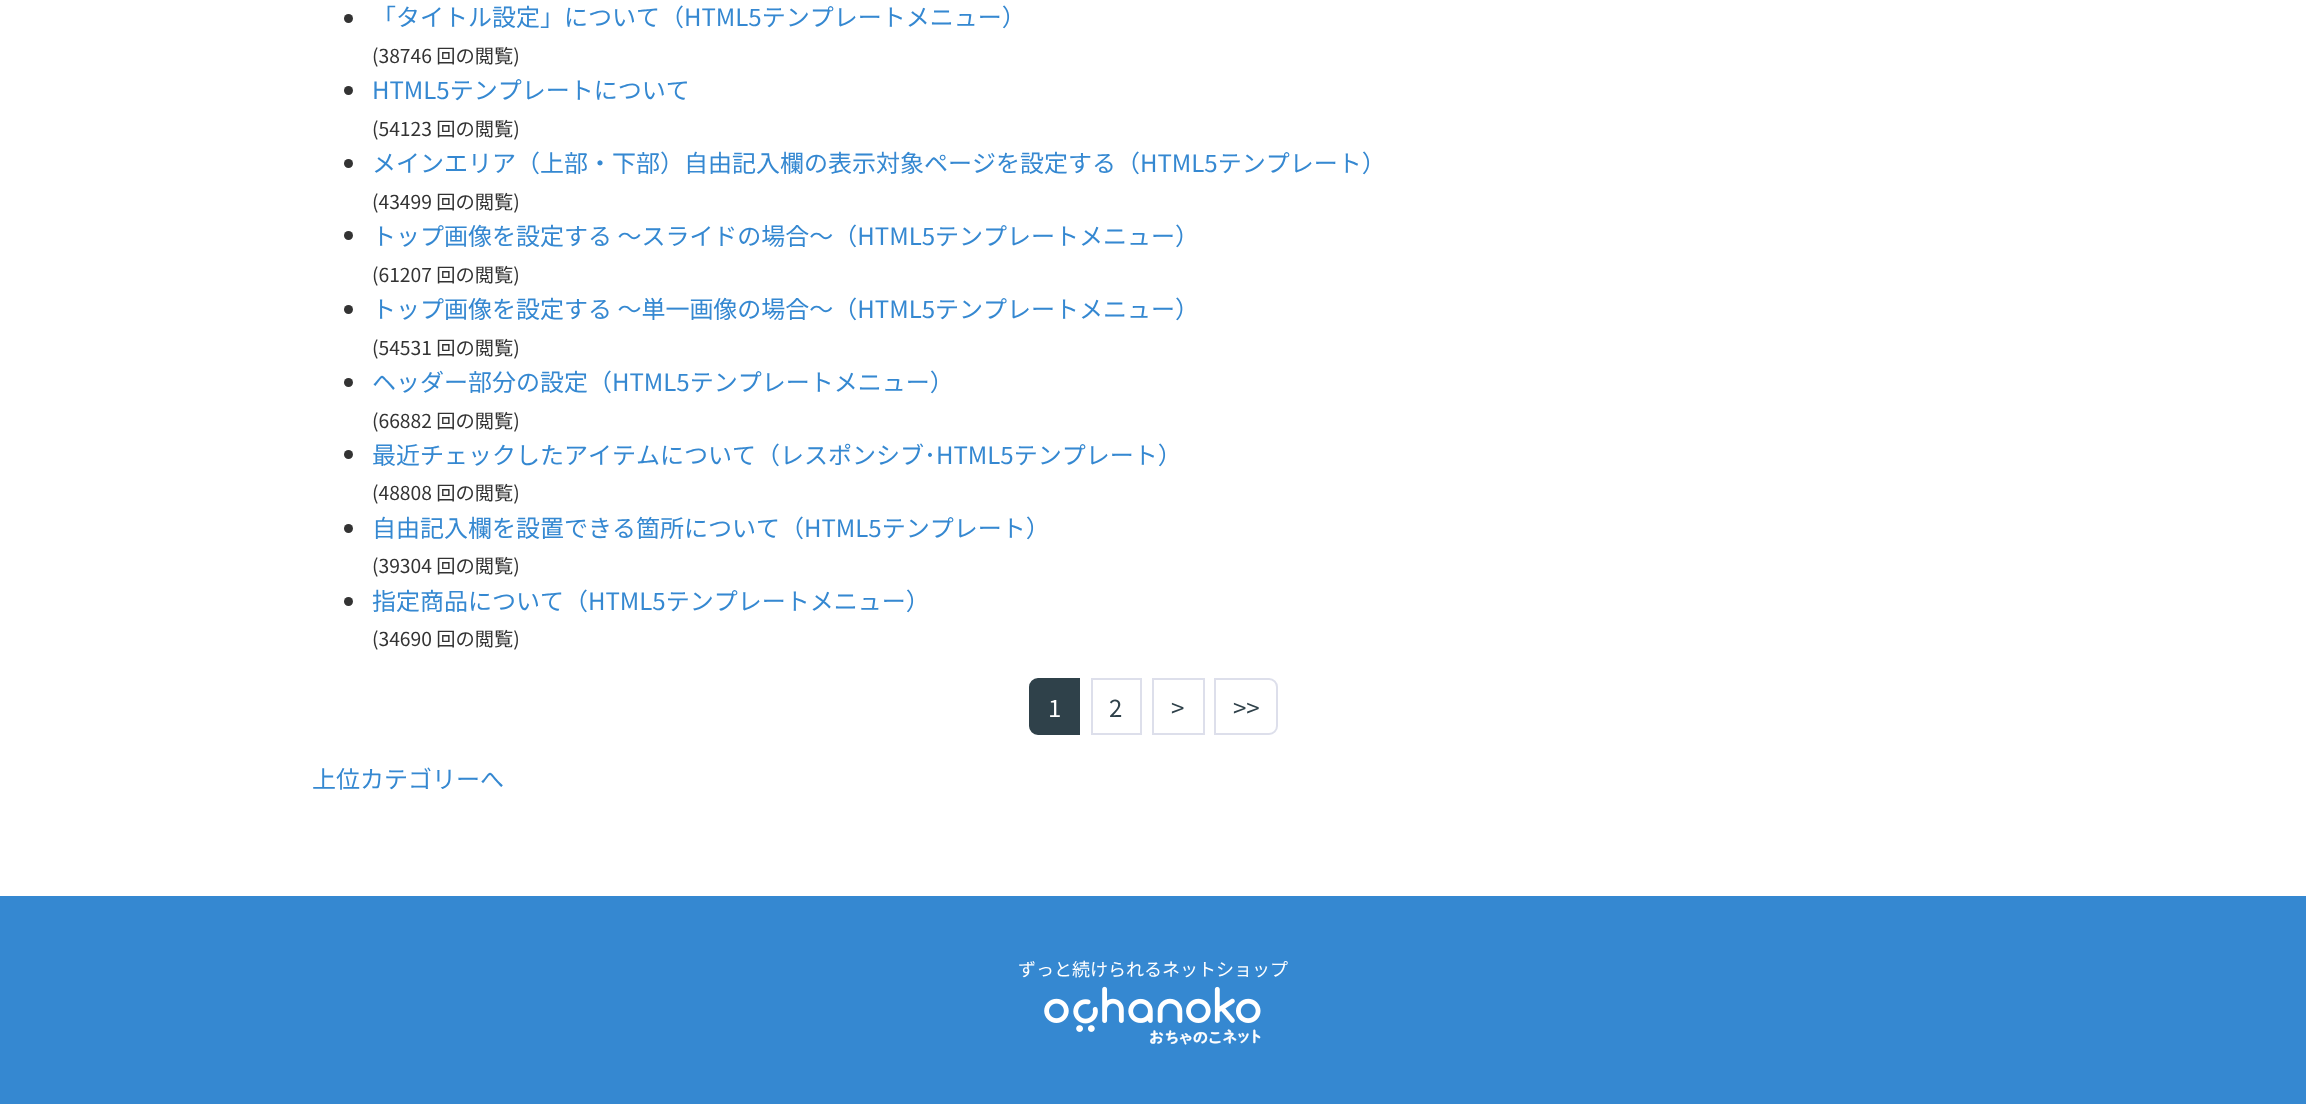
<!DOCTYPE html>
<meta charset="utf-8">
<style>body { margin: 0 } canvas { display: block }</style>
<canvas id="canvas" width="2306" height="1104"></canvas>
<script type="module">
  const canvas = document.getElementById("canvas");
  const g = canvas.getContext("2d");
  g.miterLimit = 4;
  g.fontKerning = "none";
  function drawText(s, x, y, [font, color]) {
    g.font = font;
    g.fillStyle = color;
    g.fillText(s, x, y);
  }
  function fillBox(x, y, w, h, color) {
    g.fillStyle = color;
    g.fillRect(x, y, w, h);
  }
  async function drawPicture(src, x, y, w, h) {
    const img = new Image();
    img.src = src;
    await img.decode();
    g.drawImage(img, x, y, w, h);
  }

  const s1 = ["24px Noto Sans JP", "#3588D1"];
  const s2 = ["19.25px Noto Sans JP", "#333333"];
  const s3 = ["24px Noto Sans JP", "#FFFFFF"];
  const s4 = ["24px Noto Sans JP", "#2F414A"];
  const s5 = ["18px Noto Sans JP", "#FFFFFF"];

  fillBox(0, 0, 2306, 1104, "#FFFFFF");
  g.fillStyle = "#333333";
  g.beginPath();
  g.arc(348.5, 18.5, 4.5, 0, Math.PI * 2);
  g.fill();
  drawText("「タイトル設定」について（HTML5テンプレートメニュー）", 372, 26, s1);
  drawText("(38746 回の閲覧)", 372, 63, s2);
  g.beginPath();
  g.arc(348.5, 90.5, 4.5, 0, Math.PI * 2);
  g.fill();
  drawText("HTML5テンプレートについて", 372, 99, s1);
  drawText("(54123 回の閲覧)", 372, 136, s2);
  g.beginPath();
  g.arc(348.5, 163.5, 4.5, 0, Math.PI * 2);
  g.fill();
  drawText("メインエリア（上部・下部）自由記入欄の表示対象ページを設定する（HTML5テンプレート）", 372, 172, s1);
  drawText("(43499 回の閲覧)", 372, 209, s2);
  g.beginPath();
  g.arc(348.5, 235.5, 4.5, 0, Math.PI * 2);
  g.fill();
  drawText("トップ画像を設定する ～スライドの場合～（HTML5テンプレートメニュー）", 372, 245, s1);
  drawText("(61207 回の閲覧)", 372, 282, s2);
  g.beginPath();
  g.arc(348.5, 309.5, 4.5, 0, Math.PI * 2);
  g.fill();
  drawText("トップ画像を設定する ～単一画像の場合～（HTML5テンプレートメニュー）", 372, 318, s1);
  drawText("(54531 回の閲覧)", 372, 355, s2);
  g.beginPath();
  g.arc(348.5, 382.5, 4.5, 0, Math.PI * 2);
  g.fill();
  drawText("ヘッダー部分の設定（HTML5テンプレートメニュー）", 372, 391, s1);
  drawText("(66882 回の閲覧)", 372, 428, s2);
  g.beginPath();
  g.arc(348.5, 454.5, 4.5, 0, Math.PI * 2);
  g.fill();
  drawText("最近チェックしたアイテムについて（レスポンシブ･HTML5テンプレート）", 372, 464, s1);
  drawText("(48808 回の閲覧)", 372, 500, s2);
  g.beginPath();
  g.arc(348.5, 528.5, 4.5, 0, Math.PI * 2);
  g.fill();
  drawText("自由記入欄を設置できる箇所について（HTML5テンプレート）", 372, 537, s1);
  drawText("(39304 回の閲覧)", 372, 573, s2);
  g.beginPath();
  g.arc(348.5, 601.5, 4.5, 0, Math.PI * 2);
  g.fill();
  drawText("指定商品について（HTML5テンプレートメニュー）", 372, 610, s1);
  drawText("(34690 回の閲覧)", 372, 646, s2);
  g.fillStyle = "#2F414A";
  g.beginPath();
  g.roundRect(1030, 679, 49, 55, [8, 0, 0, 8]);
  g.fill();
  g.strokeStyle = "#2F414A";
  g.lineWidth = 2;
  g.stroke();
  drawText("1", 1048, 717, s3);
  g.strokeStyle = "#DDDFEB";
  g.strokeRect(1092, 679, 49, 55);
  drawText("2", 1109, 717, s4);
  g.strokeRect(1153, 679, 51, 55);
  drawText(">", 1171, 717, s4);
  g.beginPath();
  g.roundRect(1215, 679, 62, 55, [0, 8, 8, 0]);
  g.stroke();
  drawText(">>", 1233, 717, s4);
  drawText("上位カテゴリーへ", 312, 788, s1);
  fillBox(0, 896, 2306, 208, "#3588D1");
  drawText("ずっと続けられるネットショップ", 1018, 976, s5);
  await drawPicture("pic1.png", 1044, 986, 217, 59);
</script>
